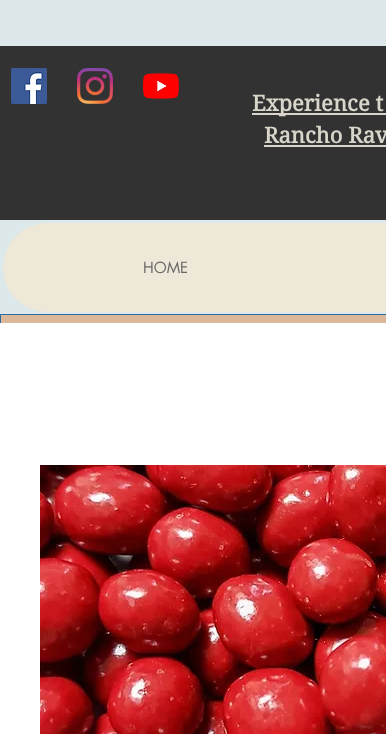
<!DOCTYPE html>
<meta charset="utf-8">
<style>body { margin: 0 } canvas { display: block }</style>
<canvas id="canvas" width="386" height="734"></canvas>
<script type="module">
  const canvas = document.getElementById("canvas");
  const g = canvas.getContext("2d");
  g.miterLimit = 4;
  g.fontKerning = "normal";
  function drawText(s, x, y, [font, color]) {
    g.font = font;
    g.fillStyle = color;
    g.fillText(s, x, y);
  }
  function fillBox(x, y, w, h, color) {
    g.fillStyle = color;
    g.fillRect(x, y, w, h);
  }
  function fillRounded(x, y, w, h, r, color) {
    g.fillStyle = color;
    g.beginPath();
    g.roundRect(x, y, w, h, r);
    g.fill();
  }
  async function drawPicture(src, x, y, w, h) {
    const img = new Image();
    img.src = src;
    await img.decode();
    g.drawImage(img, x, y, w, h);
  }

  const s1 = ["bold 22px 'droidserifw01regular'", "#D9D5CA"];
  const s2 = ["15px futura", "#696969"];

  fillBox(0, 0, 386, 734, "#DDE8EB");
  fillBox(0, 46, 386, 174, "#323232");
  await drawPicture("pic1.png", 11, 68, 36, 36);
  await drawPicture("pic2.png", 77, 68, 36, 36);
  await drawPicture("pic3.png", 143, 73, 36, 26);
  fillBox(252, 113, 134, 2, "#D9D5CA");
  drawText("Experience t", 252, 111, s1);
  drawText("Rancho Rav", 264, 143, s1);
  fillBox(264, 145, 122, 2, "#D9D5CA");
  fillRounded(3, 223, 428, 89, 44.5, "#EEE8D8");
  drawText("HOME", 143, 273, s2);
  fillBox(1, 315, 385, 8, "#DBB89A");
  g.strokeStyle = "#2B6CA3";
  g.strokeRect(0.5, 314.5, 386, 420);
  fillBox(0, 323, 386, 411, "#FFFFFF");
  await drawPicture("pic4.png", 40, 465, 346, 269);
</script>
